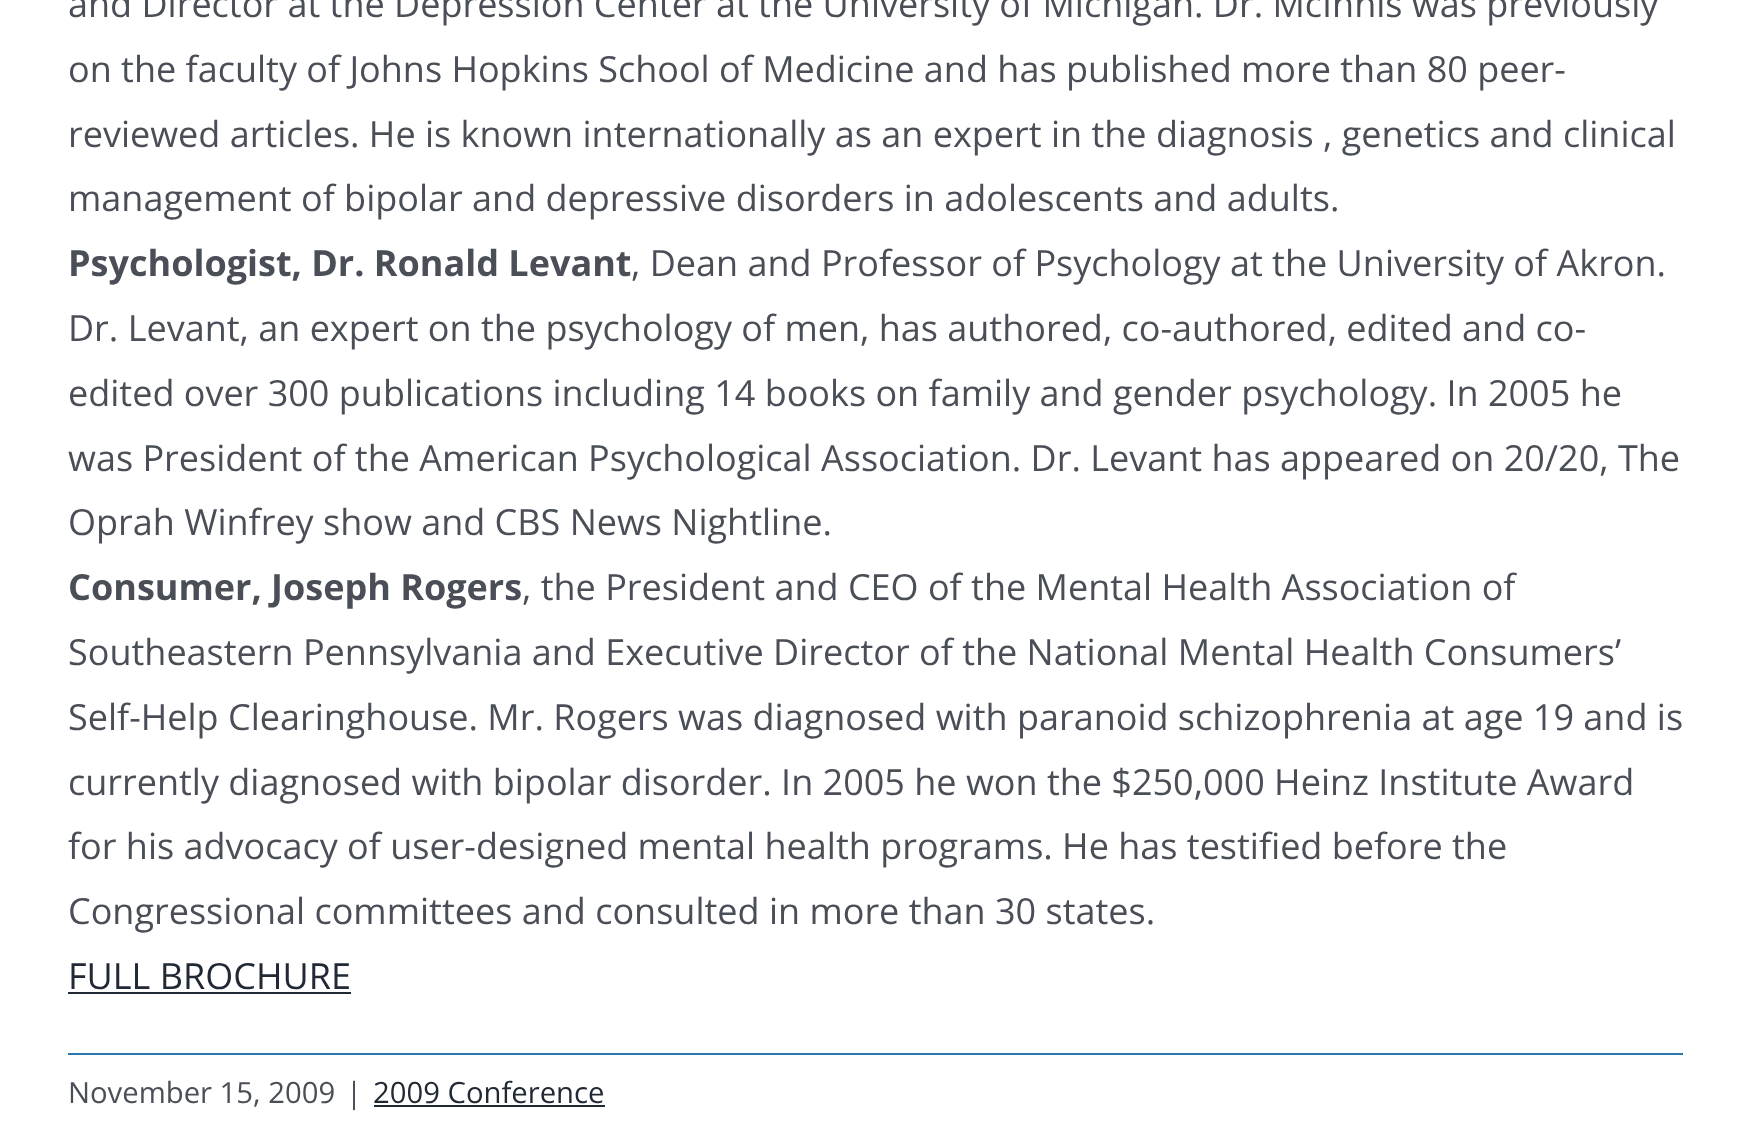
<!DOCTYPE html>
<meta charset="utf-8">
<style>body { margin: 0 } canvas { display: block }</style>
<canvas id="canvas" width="1749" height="1128"></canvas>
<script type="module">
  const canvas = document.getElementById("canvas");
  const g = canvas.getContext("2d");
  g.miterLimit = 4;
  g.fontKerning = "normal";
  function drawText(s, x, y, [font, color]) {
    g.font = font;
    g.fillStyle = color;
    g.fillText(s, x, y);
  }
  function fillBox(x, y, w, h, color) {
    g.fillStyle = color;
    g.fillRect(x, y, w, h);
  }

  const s1 = ["36px Open Sans", "#4A4E57"];
  const s2 = ["bold 36px Open Sans", "#4A4E57"];
  const s3 = ["36px Open Sans", "#212934"];
  const s4 = ["29.25px Open Sans", "#4A4E57"];
  const s5 = ["29.25px Open Sans", "#212934"];

  fillBox(0, 0, 1749, 1128, "#FFFFFF");
  drawText("and Director at the Depression Center at the University of Michigan. Dr. McInnis was previously", 68, 17, s1);
  drawText("on the faculty of Johns Hopkins School of Medicine and has published more than 80 peer-", 68, 82, s1);
  drawText("reviewed articles. He is known internationally as an expert in the diagnosis , genetics and clinical", 68, 147, s1);
  drawText("management of bipolar and depressive disorders in adolescents and adults.", 68, 211, s1);
  drawText("Psychologist, Dr. Ronald Levant", 68, 276, s2);
  drawText(", Dean and Professor of Psychology at the University of Akron.", 631, 276, s1);
  drawText("Dr. Levant, an expert on the psychology of men, has authored, co-authored, edited and co-", 68, 341, s1);
  drawText("edited over 300 publications including 14 books on family and gender psychology. In 2005 he", 68, 406, s1);
  drawText("was President of the American Psychological Association. Dr. Levant has appeared on 20/20, The", 68, 471, s1);
  drawText("Oprah Winfrey show and CBS News Nightline.", 68, 535, s1);
  drawText("Consumer, Joseph Rogers", 68, 600, s2);
  drawText(", the President and CEO of the Mental Health Association of", 522, 600, s1);
  drawText("Southeastern Pennsylvania and Executive Director of the National Mental Health Consumers’", 68, 665, s1);
  drawText("Self-Help Clearinghouse. Mr. Rogers was diagnosed with paranoid schizophrenia at age 19 and is", 68, 730, s1);
  drawText("currently diagnosed with bipolar disorder. In 2005 he won the $250,000 Heinz Institute Award", 68, 795, s1);
  drawText("for his advocacy of user-designed mental health programs. He has testified before the", 68, 859, s1);
  drawText("Congressional committees and consulted in more than 30 states.", 68, 924, s1);
  drawText("FULL BROCHURE", 68, 989, s3);
  fillBox(68, 992, 283, 2, "#212934");
  fillBox(68, 1053, 1615, 2, "#2878AE");
  drawText("November 15, 2009", 68, 1103, s4);
  drawText("|", 346, 1103, s4);
  drawText("2009 Conference", 373, 1103, s5);
  fillBox(374, 1105, 231, 2, "#212934");
</script>
